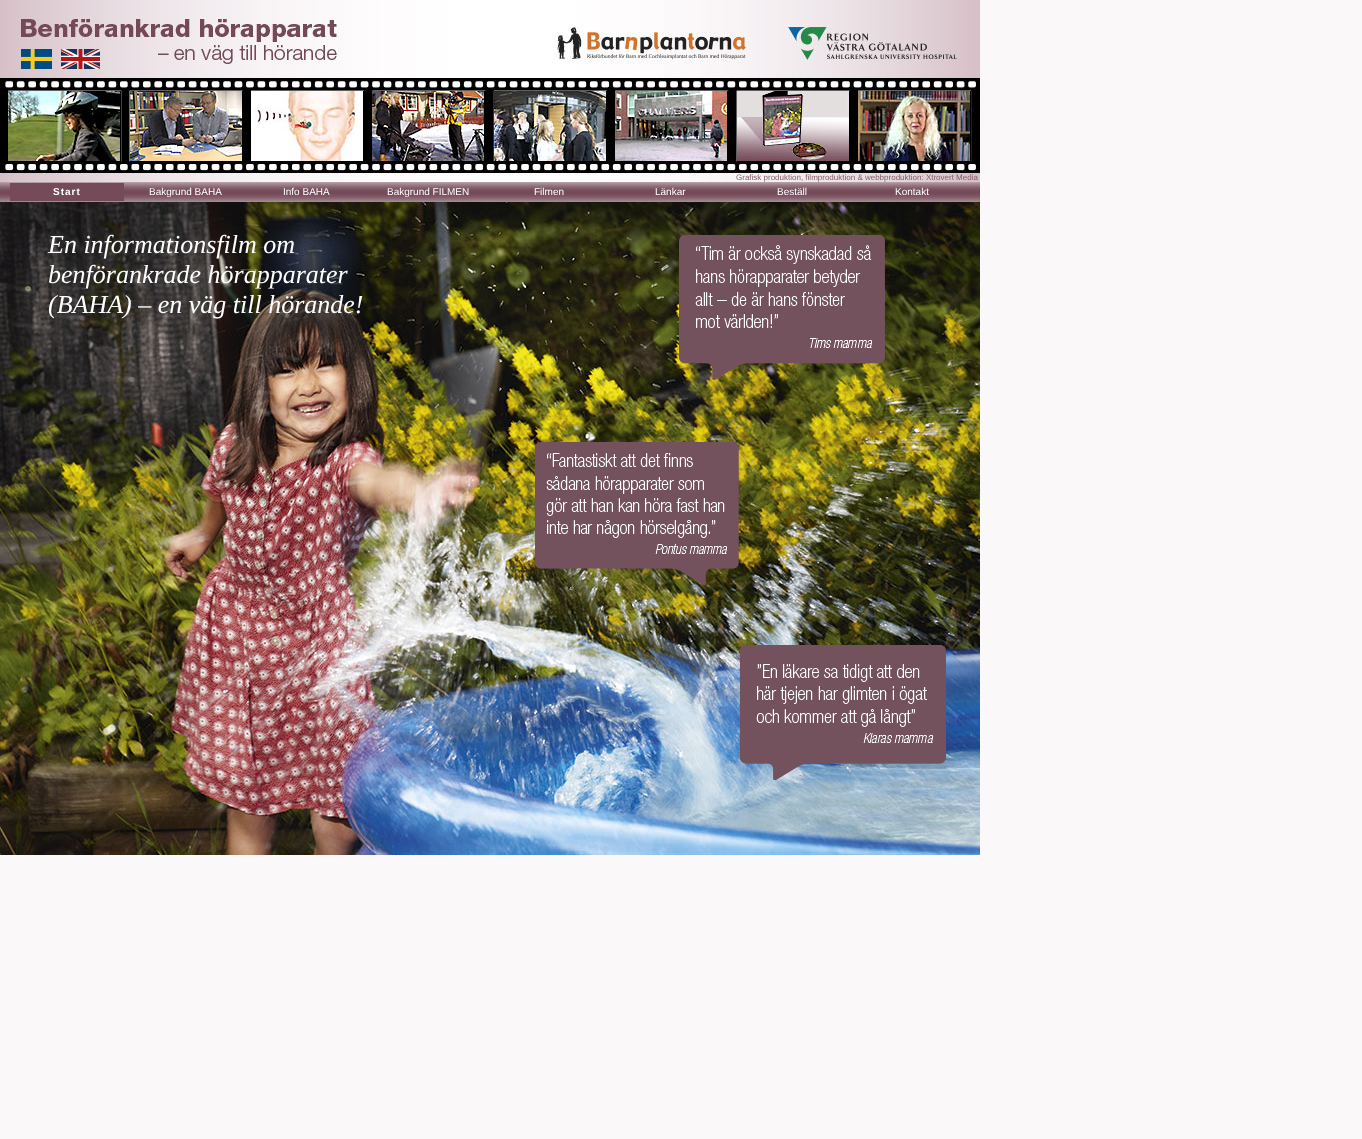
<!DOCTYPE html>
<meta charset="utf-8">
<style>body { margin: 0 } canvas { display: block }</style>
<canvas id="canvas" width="1362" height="1139"></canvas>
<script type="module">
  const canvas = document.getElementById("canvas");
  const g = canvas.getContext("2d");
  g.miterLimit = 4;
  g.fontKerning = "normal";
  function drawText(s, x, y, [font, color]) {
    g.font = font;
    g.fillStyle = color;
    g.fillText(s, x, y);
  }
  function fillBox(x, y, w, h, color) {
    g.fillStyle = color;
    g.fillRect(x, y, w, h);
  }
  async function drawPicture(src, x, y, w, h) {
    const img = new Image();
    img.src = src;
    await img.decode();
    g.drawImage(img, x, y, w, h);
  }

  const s1 = ["8px Liberation Sans", "#815A67"];
  const s2 = ["bold 10px Liberation Sans", "#FFFFFF"];
  const s3 = ["10px Liberation Sans", "#FFFFFF"];
  const s4 = ["italic 26px Liberation Serif", "#FFFFFF"];

  fillBox(0, 0, 1362, 1139, "#FAF8F9");
  await drawPicture("pic1.png", 0, 0, 980, 182);
  await drawPicture("pic2.png", 21, 49, 31, 20);
  await drawPicture("pic3.png", 61, 49, 39, 20);
  await drawPicture("pic4.png", 0, 78, 980, 95);
  fillBox(8, 91, 113, 71, "#000000");
  await drawPicture("pic5.png", 8, 91, 112, 70);
  fillBox(130, 91, 113, 71, "#000000");
  await drawPicture("pic6.png", 130, 91, 112, 70);
  fillBox(251, 91, 114, 71, "#000000");
  await drawPicture("pic7.png", 251, 91, 112, 70);
  fillBox(372, 91, 114, 71, "#000000");
  await drawPicture("pic8.png", 372, 91, 112, 70);
  fillBox(494, 91, 114, 71, "#000000");
  await drawPicture("pic9.png", 494, 91, 112, 70);
  fillBox(615, 91, 114, 71, "#000000");
  await drawPicture("pic10.png", 615, 91, 112, 70);
  fillBox(737, 91, 114, 71, "#000000");
  await drawPicture("pic11.png", 737, 91, 112, 70);
  fillBox(858, 91, 113, 71, "#000000");
  await drawPicture("pic12.png", 858, 91, 112, 70);
  drawText("Grafisk produktion, filmproduktion & webbproduktion: Xtrovert Media", 736, 180, s1);
  await drawPicture("pic13.png", 0, 182, 980, 20);
  fillBox(10, 183, 114, 18, "#754B59");
  g.letterSpacing = "1px";
  drawText("Start", 53, 195, s2);
  g.letterSpacing = "0px";
  drawText("Bakgrund BAHA", 149, 195, s3);
  drawText("Info BAHA", 283, 195, s3);
  drawText("Bakgrund FILMEN", 387, 195, s3);
  drawText("Filmen", 534, 195, s3);
  drawText("Länkar", 655, 195, s3);
  drawText("Beställ", 777, 195, s3);
  drawText("Kontakt", 895, 195, s3);
  await drawPicture("pic14.png", 0, 202, 980, 653);
  drawText("En informationsfilm om", 48, 253, s4);
  drawText("benförankrade hörapparater", 48, 283, s4);
  drawText("(BAHA) – en väg till hörande!", 48, 313, s4);
  await drawPicture("pic15.png", 679, 235, 206, 145);
  await drawPicture("pic16.png", 535, 442, 204, 143);
  await drawPicture("pic17.png", 740, 645, 206, 135);
</script>
